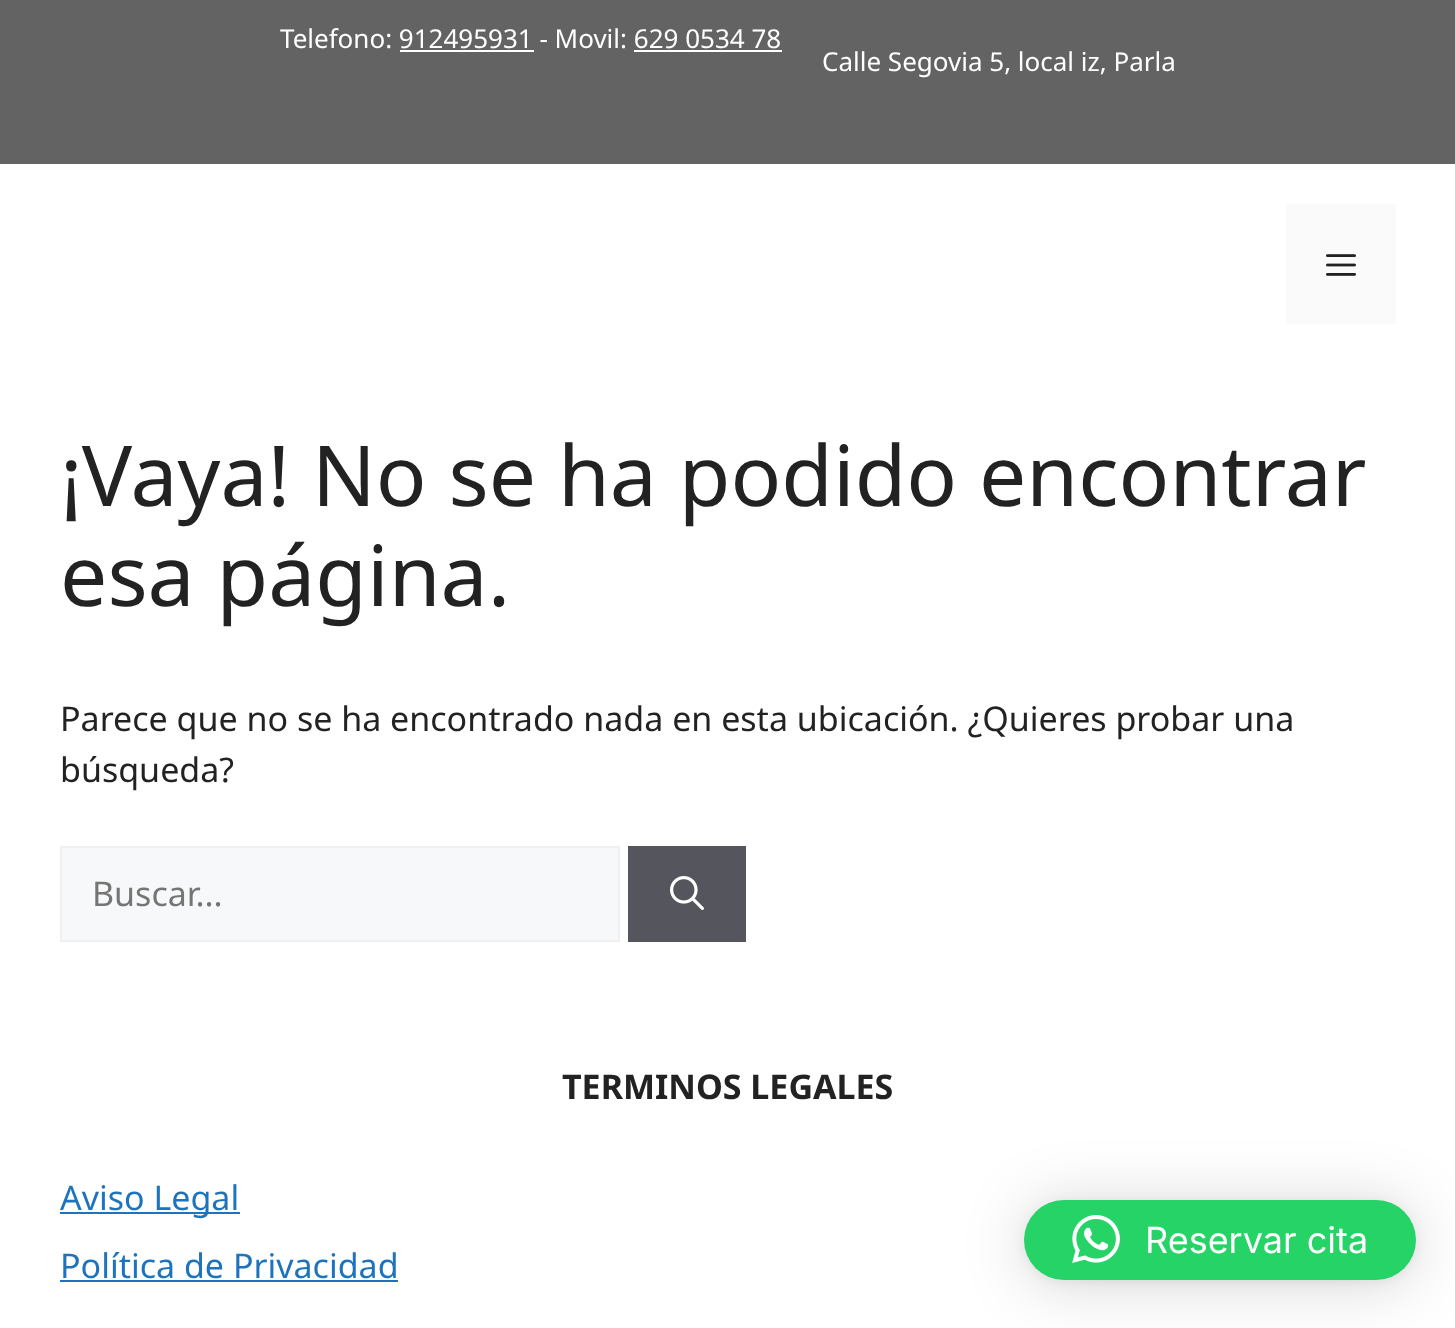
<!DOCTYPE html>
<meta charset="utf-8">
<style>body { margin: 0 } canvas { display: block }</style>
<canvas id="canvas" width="1455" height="1328"></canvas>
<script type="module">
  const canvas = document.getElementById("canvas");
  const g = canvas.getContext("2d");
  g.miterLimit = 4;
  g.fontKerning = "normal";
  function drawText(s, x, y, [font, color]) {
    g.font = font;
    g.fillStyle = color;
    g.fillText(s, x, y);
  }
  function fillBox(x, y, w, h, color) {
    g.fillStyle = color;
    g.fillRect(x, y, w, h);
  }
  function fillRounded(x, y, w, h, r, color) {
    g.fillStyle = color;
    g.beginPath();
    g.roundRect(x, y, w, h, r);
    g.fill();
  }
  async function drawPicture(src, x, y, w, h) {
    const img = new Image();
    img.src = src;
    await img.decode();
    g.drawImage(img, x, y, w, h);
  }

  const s1 = ["26px Noto Sans", "#FFFFFF"];
  const s2 = ["84px Noto Sans", "#222222"];
  const s3 = ["34px Noto Sans", "#222222"];
  const s4 = ["34px Noto Sans", "#757575"];
  const s5 = ["bold 34px Noto Sans", "#222222"];
  const s6 = ["34px Noto Sans", "#1E73BE"];
  const s7 = ["36px Inter", "#FFFFFF"];

  fillBox(0, 0, 1455, 1328, "#636363");
  drawText("Telefono: 912495931 - Movil: 629 0534 78", 280, 48, s1);
  fillBox(400, 50, 134, 2, "#FFFFFF");
  fillBox(634, 50, 148, 2, "#FFFFFF");
  drawText("Calle Segovia 5, local iz, Parla", 822, 71, s1);
  fillBox(0, 164, 1455, 1164, "#FFFFFF");
  fillBox(1286, 204, 110, 120, "#FAFAFA");
  await drawPicture("pic1.png", 1326, 254, 30, 22);
  drawText("¡Vaya! No se ha podido encontrar", 60, 506, s2);
  drawText("esa página.", 60, 606, s2);
  drawText("Parece que no se ha encontrado nada en esta ubicación. ¿Quieres probar una", 60, 731, s3);
  drawText("búsqueda?", 60, 782, s3);
  g.fillStyle = "#F7F8F9";
  g.beginPath();
  g.rect(61, 847, 558, 94);
  g.fill();
  g.strokeStyle = "#F0F0F0";
  g.lineWidth = 2;
  g.stroke();
  drawText("Buscar...", 92, 906, s4);
  fillBox(628, 846, 118, 96, "#55555E");
  await drawPicture("pic2.png", 670, 876, 34, 34);
  drawText("TERMINOS LEGALES", 562, 1099, s5);
  fillBox(60, 1212, 180, 2, "#1E73BE");
  drawText("Aviso Legal", 60, 1210, s6);
  drawText("Política de Privacidad", 60, 1278, s6);
  fillBox(60, 1280, 338, 2, "#1E73BE");
  g.fillStyle = "rgba(0, 0, 0, 0.16)";
  g.filter = "blur(32px)";
  g.beginPath();
  g.roundRect(1024, 1204, 392, 80, 40);
  g.fill();
  g.filter = "none";
  g.fillStyle = "rgba(0, 0, 0, 0.06)";
  g.filter = "blur(6px)";
  g.beginPath();
  g.roundRect(1024, 1202, 392, 80, 40);
  g.fill();
  g.filter = "none";
  fillRounded(1024, 1200, 392, 80, 40, "#25D366");
  await drawPicture("pic3.png", 1072, 1215, 48, 48);
  drawText("Reservar cita", 1145, 1253, s7);
</script>
